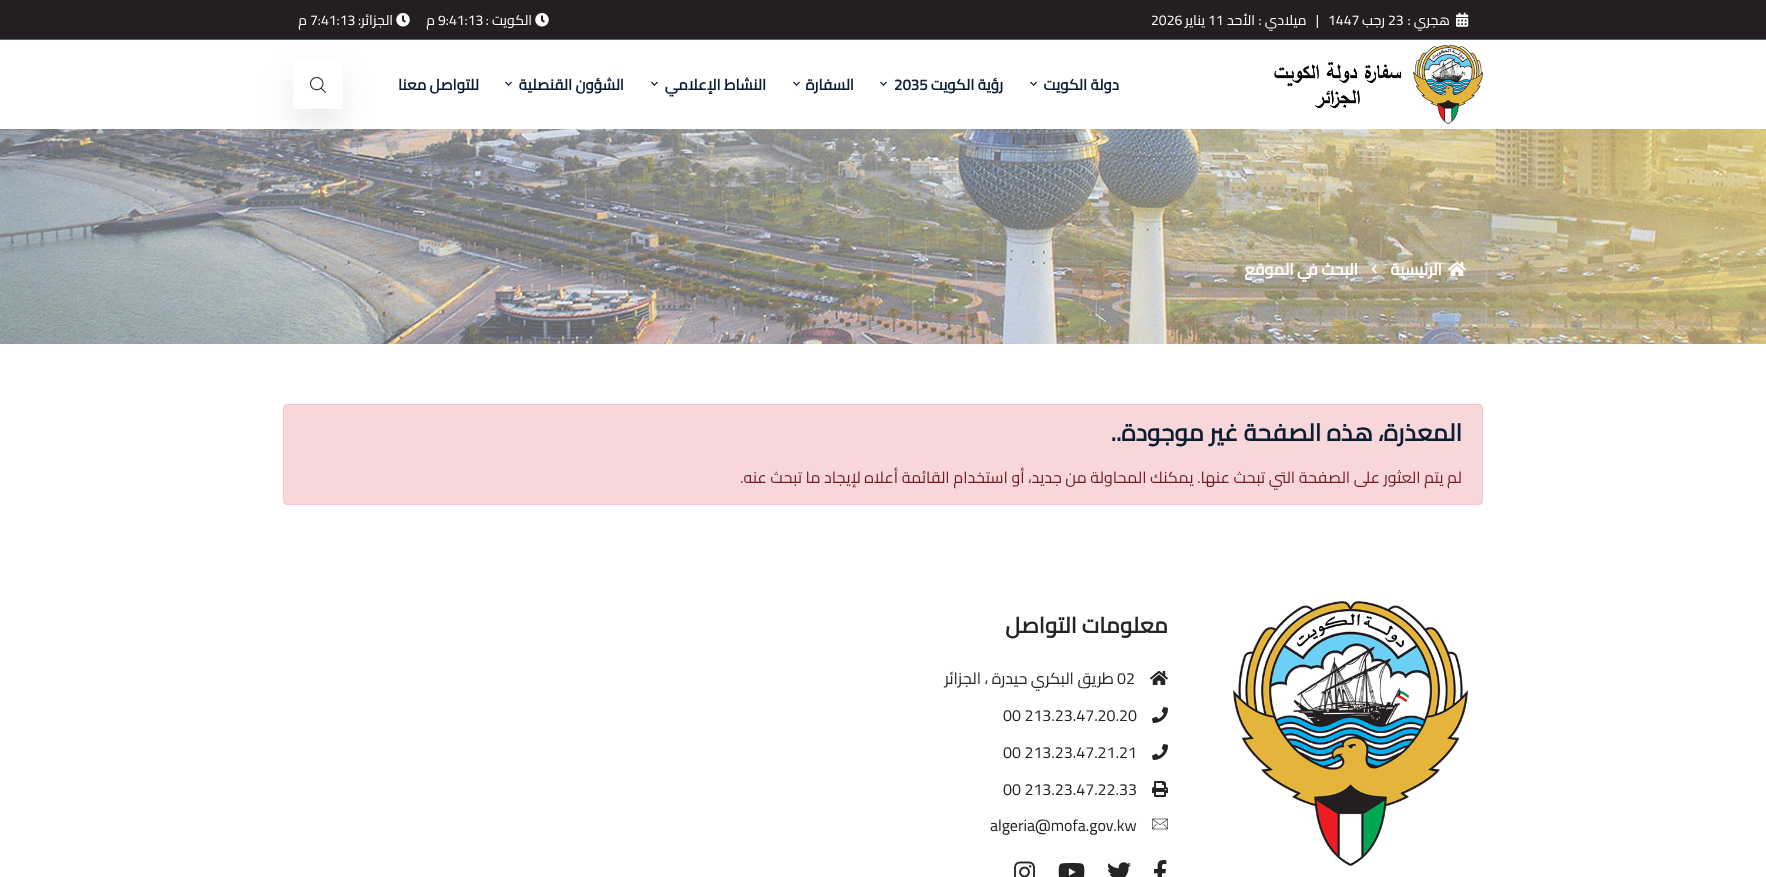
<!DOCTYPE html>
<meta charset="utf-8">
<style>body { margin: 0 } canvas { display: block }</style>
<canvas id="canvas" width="1766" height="877"></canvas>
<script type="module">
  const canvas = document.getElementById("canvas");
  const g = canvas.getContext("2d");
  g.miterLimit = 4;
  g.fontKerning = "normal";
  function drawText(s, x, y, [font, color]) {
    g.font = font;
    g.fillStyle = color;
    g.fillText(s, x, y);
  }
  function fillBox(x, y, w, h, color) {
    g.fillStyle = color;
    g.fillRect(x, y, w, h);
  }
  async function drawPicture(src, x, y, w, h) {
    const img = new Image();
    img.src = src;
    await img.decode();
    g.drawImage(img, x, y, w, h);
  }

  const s1 = ["14px Cairo", "#FFFFFF"];
  const s2 = ["bold 15px Cairo", "#0B1E33"];
  const s3 = ["bold 16px Cairo", "#FFFFFF"];
  const s4 = ["bold 24px Cairo", "#0B1E33"];
  const s5 = ["16px Cairo", "#721C24"];
  const s6 = ["bold 22px Cairo", "#242424"];
  const s7 = ["16px Cairo", "#242424"];

  fillBox(0, 0, 1766, 877, "#FFFFFF");
  fillBox(0, 0, 1766, 39, "#231F20");
  fillBox(0, 39, 1766, 1, "#5C617F");
  await drawPicture("pic1.png", 1456, 12, 13, 15);
  g.direction = "rtl";
  drawText("هجري :", 1450, 25, s1);
  g.direction = "ltr";
  drawText("23", 1388, 25, s1);
  g.direction = "rtl";
  drawText("رجب", 1385, 25, s1);
  g.direction = "ltr";
  drawText("1447", 1328, 25, s1);
  g.direction = "rtl";
  drawText("|   ميلادي :", 1319, 25, s1);
  drawText("الأحد", 1255, 25, s1);
  g.direction = "ltr";
  drawText("11", 1208, 25, s1);
  g.direction = "rtl";
  drawText("يناير", 1205, 25, s1);
  g.direction = "ltr";
  drawText("2026", 1151, 25, s1);
  await drawPicture("pic2.png", 535, 13, 14, 14);
  g.direction = "rtl";
  drawText("الكويت :", 532, 25, s1);
  g.direction = "ltr";
  drawText("9:41:13", 438, 25, s1);
  g.direction = "rtl";
  drawText("م", 435, 25, s1);
  await drawPicture("pic2.png", 396, 13, 14, 14);
  drawText("الجزائر:", 393, 25, s1);
  g.direction = "ltr";
  drawText("7:41:13", 310, 25, s1);
  g.direction = "rtl";
  drawText("م", 307, 25, s1);
  await drawPicture("pic3.png", 1274, 45, 209, 79);
  drawText("دولة الكويت", 1119, 90, s2);
  await drawPicture("pic4.png", 1030, 81, 7, 5);
  drawText("رؤية الكويت", 1003, 90, s2);
  g.direction = "ltr";
  drawText("2035", 894, 90, s2);
  await drawPicture("pic4.png", 880, 81, 7, 5);
  g.direction = "rtl";
  drawText("السفارة", 854, 90, s2);
  await drawPicture("pic4.png", 793, 81, 7, 5);
  drawText("النشاط الإعلامي", 766, 90, s2);
  await drawPicture("pic4.png", 651, 81, 7, 5);
  drawText("الشؤون القنصلية", 624, 90, s2);
  await drawPicture("pic4.png", 505, 81, 7, 5);
  drawText("للتواصل معنا", 479, 90, s2);
  await drawPicture("pic6.png", 0, 129, 1766, 215);
  g.save();
  g.beginPath();
  g.moveTo(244, 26);
  g.lineTo(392, 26);
  g.lineTo(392, 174);
  g.lineTo(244, 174);
  g.closePath();
  g.moveTo(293, 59);
  g.lineTo(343, 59);
  g.lineTo(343, 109);
  g.lineTo(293, 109);
  g.closePath();
  g.clip("evenodd");
  g.fillStyle = "rgba(7, 28, 31, 0.1)";
  g.filter = "blur(16px)";
  g.beginPath();
  g.rect(293, 75, 50, 50);
  g.fill();
  g.filter = "none";
  g.restore();
  await drawPicture("pic5.png", 310, 77, 16, 16);
  await drawPicture("pic7.png", 1448, 262, 18, 14);
  drawText("الرئيسية", 1442, 275, s3);
  await drawPicture("pic8.png", 1371, 265, 6, 9);
  drawText("البحث في الموقع", 1358, 275, s3);
  g.fillStyle = "#F8D7DA";
  g.beginPath();
  g.roundRect(283.5, 404.5, 1199, 100, 3.5);
  g.fill();
  g.strokeStyle = "#F5C6CB";
  g.stroke();
  drawText("المعذرة، هذه الصفحة غير موجودة..", 1462, 441, s4);
  drawText("لم يتم العثور على الصفحة التي تبحث عنها. يمكنك المحاولة من جديد، أو استخدام القائمة أعلاه لإيجاد ما تبحث عنه.", 1462, 483, s5);
  await drawPicture("pic9.png", 1233, 601, 235, 265);
  drawText("معلومات التواصل", 1168, 633, s6);
  await drawPicture("pic10.png", 1150, 671, 18, 14);
  g.direction = "ltr";
  drawText("02", 1117, 684, s7);
  g.direction = "rtl";
  drawText("طريق البكري حيدرة ، الجزائر", 1114, 684, s7);
  await drawPicture("pic11.png", 1152, 707, 16, 16);
  g.direction = "ltr";
  drawText("00 213.23.47.20.20", 1003, 721, s7);
  await drawPicture("pic11.png", 1152, 744, 16, 16);
  drawText("00 213.23.47.21.21", 1003, 758, s7);
  await drawPicture("pic12.png", 1152, 781, 16, 16);
  drawText("00 213.23.47.22.33", 1003, 795, s7);
  await drawPicture("pic13.png", 1152, 818, 16, 12);
  drawText("algeria@mofa.gov.kw", 990, 831, s7);
  await drawPicture("pic14.png", 1154, 860, 13, 17);
  await drawPicture("pic15.png", 1108, 862, 23, 15);
  await drawPicture("pic16.png", 1058, 863, 27, 14);
  await drawPicture("pic17.png", 1014, 861, 21, 16);
</script>
